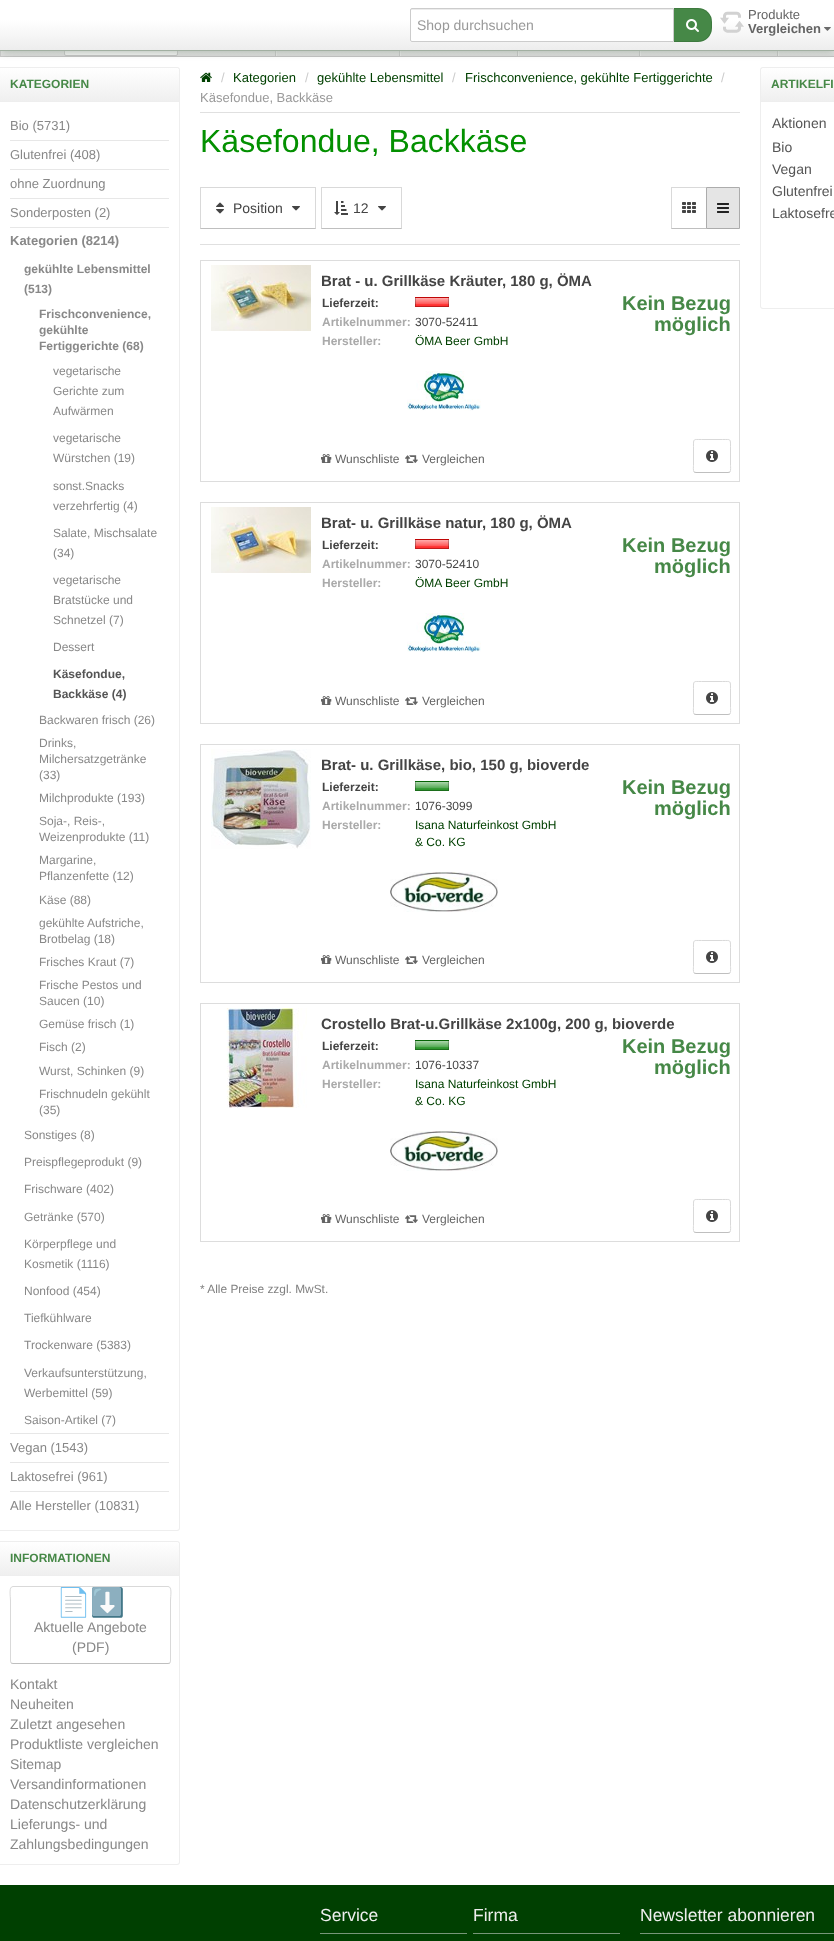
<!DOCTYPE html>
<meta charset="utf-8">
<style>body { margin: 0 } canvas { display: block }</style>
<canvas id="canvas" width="834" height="1941"></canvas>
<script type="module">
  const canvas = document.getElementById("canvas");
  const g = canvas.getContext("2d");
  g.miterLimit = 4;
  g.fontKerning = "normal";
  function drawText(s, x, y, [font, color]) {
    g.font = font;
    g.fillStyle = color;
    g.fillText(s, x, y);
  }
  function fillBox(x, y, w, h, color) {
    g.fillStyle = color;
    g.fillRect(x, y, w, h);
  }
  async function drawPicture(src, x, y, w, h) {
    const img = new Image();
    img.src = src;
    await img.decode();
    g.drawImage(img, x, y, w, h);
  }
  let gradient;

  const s1 = ["14px Liberation Sans", "#999999"];
  const s2 = ["24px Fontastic", "#D2D2D2"];
  const s3 = ["13px Liberation Sans", "#646464"];
  const s4 = ["bold 13px Liberation Sans", "#646464"];
  const s5 = ["bold 12px Liberation Sans", "#468847"];
  const s6 = ["13px Liberation Sans", "#888888"];
  const s7 = ["bold 13px Liberation Sans", "#888888"];
  const s8 = ["bold 12px Liberation Sans", "#888888"];
  const s9 = ["12px Liberation Sans", "#888888"];
  const s10 = ["bold 12px Liberation Sans", "#555555"];
  const s11 = ["28px Noto Color Emoji", "#888888"];
  const s12 = ["14px Liberation Sans", "#888888"];
  const s13 = ["13px Liberation Sans", "#CCCCCC"];
  const s14 = ["13px Liberation Sans", "#004001"];
  const s15 = ["13px Liberation Sans", "#999999"];
  const s16 = ["32px Liberation Sans", "#039000"];
  const s17 = ["14px Liberation Sans", "#444444"];
  const s18 = ["bold 15px Liberation Sans", "#444444"];
  const s19 = ["bold 12px Liberation Sans", "#444444"];
  const s20 = ["bold 12px Liberation Sans", "#AAAAAA"];
  const s21 = ["12px Liberation Sans", "#444444"];
  const s22 = ["12px Liberation Sans", "#004001"];
  const s23 = ["bold 20px Liberation Sans", "#468847"];
  const s24 = ["12px Liberation Sans", "#646464"];
  const s25 = ["11.9px Liberation Sans", "#808080"];
  const s26 = ["14px Liberation Sans", "#555555"];
  const s27 = ["17.5px Liberation Sans", "#EEEEEE"];

  fillBox(0, 0, 834, 1941, "#FFFFFF");
  gradient = g.createLinearGradient(470, 18, 470, 56);
  gradient.addColorStop(0, "#FFFFFF");
  gradient.addColorStop(0.5, "#F7F7F7");
  gradient.addColorStop(0.51, "#F3F3F3");
  gradient.addColorStop(1, "#E8E8E8");
  g.fillStyle = gradient;
  g.fillRect(1, 51, 833, 5);
  gradient = g.createLinearGradient(470, 18, 470, 56);
  gradient.addColorStop(0, "#E0E0E0");
  gradient.addColorStop(0.5, "#D9D9D9");
  gradient.addColorStop(0.51, "#D6D6D6");
  gradient.addColorStop(1, "#CCCCCC");
  g.fillStyle = gradient;
  g.fillRect(777, 51, 1, 5);
  gradient = g.createLinearGradient(470, 18, 470, 56);
  gradient.addColorStop(0, "#FFFFFF");
  gradient.addColorStop(0.5, "#FBFBFB");
  gradient.addColorStop(0.51, "#F9F9F9");
  gradient.addColorStop(1, "#F4F4F4");
  g.fillStyle = gradient;
  g.fillRect(778, 51, 1, 5);
  gradient = g.createLinearGradient(470, 18, 470, 56);
  gradient.addColorStop(0, "#E0E0E0");
  gradient.addColorStop(0.5, "#D9D9D9");
  gradient.addColorStop(0.51, "#D6D6D6");
  gradient.addColorStop(1, "#CCCCCC");
  g.fillStyle = gradient;
  g.fillRect(639, 51, 1, 5);
  gradient = g.createLinearGradient(470, 18, 470, 56);
  gradient.addColorStop(0, "#FFFFFF");
  gradient.addColorStop(0.5, "#FBFBFB");
  gradient.addColorStop(0.51, "#F9F9F9");
  gradient.addColorStop(1, "#F4F4F4");
  g.fillStyle = gradient;
  g.fillRect(640, 51, 1, 5);
  gradient = g.createLinearGradient(470, 18, 470, 56);
  gradient.addColorStop(0, "#E0E0E0");
  gradient.addColorStop(0.5, "#D9D9D9");
  gradient.addColorStop(0.51, "#D6D6D6");
  gradient.addColorStop(1, "#CCCCCC");
  g.fillStyle = gradient;
  g.fillRect(517, 51, 1, 5);
  gradient = g.createLinearGradient(470, 18, 470, 56);
  gradient.addColorStop(0, "#FFFFFF");
  gradient.addColorStop(0.5, "#FBFBFB");
  gradient.addColorStop(0.51, "#F9F9F9");
  gradient.addColorStop(1, "#F4F4F4");
  g.fillStyle = gradient;
  g.fillRect(518, 51, 1, 5);
  gradient = g.createLinearGradient(470, 18, 470, 56);
  gradient.addColorStop(0, "#E0E0E0");
  gradient.addColorStop(0.5, "#D9D9D9");
  gradient.addColorStop(0.51, "#D6D6D6");
  gradient.addColorStop(1, "#CCCCCC");
  g.fillStyle = gradient;
  g.fillRect(399, 51, 1, 5);
  gradient = g.createLinearGradient(470, 18, 470, 56);
  gradient.addColorStop(0, "#FFFFFF");
  gradient.addColorStop(0.5, "#FBFBFB");
  gradient.addColorStop(0.51, "#F9F9F9");
  gradient.addColorStop(1, "#F4F4F4");
  g.fillStyle = gradient;
  g.fillRect(400, 51, 1, 5);
  gradient = g.createLinearGradient(470, 18, 470, 56);
  gradient.addColorStop(0, "#E0E0E0");
  gradient.addColorStop(0.5, "#D9D9D9");
  gradient.addColorStop(0.51, "#D6D6D6");
  gradient.addColorStop(1, "#CCCCCC");
  g.fillStyle = gradient;
  g.fillRect(275, 51, 1, 5);
  gradient = g.createLinearGradient(470, 18, 470, 56);
  gradient.addColorStop(0, "#FFFFFF");
  gradient.addColorStop(0.5, "#FBFBFB");
  gradient.addColorStop(0.51, "#F9F9F9");
  gradient.addColorStop(1, "#F4F4F4");
  g.fillStyle = gradient;
  g.fillRect(276, 51, 1, 5);
  g.strokeStyle = "#CFCFCF";
  g.strokeRect(0.5, 17.5, 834, 39);
  g.fillStyle = "#FFFFFF";
  g.beginPath();
  g.roundRect(64.5, 22.5, 113, 33, 1.5);
  g.fill();
  g.strokeStyle = "#CCCCCC";
  g.stroke();
  g.fillStyle = "rgba(0, 0, 0, 0.15)";
  g.filter = "blur(7.5px)";
  g.beginPath();
  g.rect(0, 57, 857, 1828);
  g.fill();
  g.filter = "none";
  fillBox(0, 57, 834, 1828, "#FFFFFF");
  g.fillStyle = "#A2B0A2";
  g.filter = "blur(4px)";
  g.beginPath();
  g.rect(0, 0, 834, 51);
  g.fill();
  g.filter = "none";
  gradient = g.createLinearGradient(417, 0, 417, 50);
  gradient.addColorStop(0, "#FFFFFF");
  gradient.addColorStop(0.4, "#FFFFFF");
  gradient.addColorStop(1, "#EDEDED");
  g.fillStyle = gradient;
  g.fillRect(0, 0, 834, 50);
  fillBox(0, 50, 834, 1, "#A2B0A2");
  g.fillStyle = "#468847";
  g.beginPath();
  g.roundRect(673, 8, 39, 34, [0, 14, 14, 0]);
  g.fill();
  g.beginPath();
  g.roundRect(673.5, 8.5, 38, 33, [0, 13.5, 13.5, 0]);
  g.strokeStyle = "rgba(0, 0, 0, 0.1)";
  g.stroke();
  g.fillStyle = "#FFFFFF";
  g.beginPath();
  g.roundRect(410, 8, 264, 34, [2, 0, 0, 2]);
  g.fill();
  g.fillStyle = "#ECECEC";
  g.beginPath();
  g.moveTo(412, 10);
  g.lineTo(673, 10);
  g.lineTo(673, 9);
  g.lineTo(412, 9);
  g.lineTo(411, 9);
  g.lineTo(411, 11);
  g.bezierCurveTo(411, 10, 411, 10, 412, 10);
  g.closePath();
  g.fill();
  g.beginPath();
  g.roundRect(410.5, 8.5, 263, 33, [1.5, 0, 0, 1.5]);
  g.strokeStyle = "#CCCCCC";
  g.stroke();
  drawText("Shop durchsuchen", 417, 30, s1);
  await drawPicture("pic1.png", 686, 19, 13, 13);
  drawText("3", 720, 34, s2);
  drawText("Produkte", 748, 19, s3);
  drawText("Vergleichen", 748, 33, s4);
  await drawPicture("pic2.png", 824, 27, 7, 4);
  g.fillStyle = "#EEEEEE";
  g.beginPath();
  g.moveTo(0, 67);
  g.lineTo(177, 67);
  g.bezierCurveTo(179, 67, 180, 68, 180, 70);
  g.lineTo(180, 1528);
  g.bezierCurveTo(180, 1530, 179, 1531, 177, 1531);
  g.lineTo(0, 1531);
  g.closePath();
  g.moveTo(0, 68);
  g.lineTo(177, 68);
  g.bezierCurveTo(178, 68, 179, 69, 179, 70);
  g.lineTo(179, 1528);
  g.bezierCurveTo(179, 1529, 178, 1530, 177, 1530);
  g.lineTo(0, 1530);
  g.closePath();
  g.fill("evenodd");
  gradient = g.createLinearGradient(90, 68, 90, 101);
  gradient.addColorStop(0, "#FFFFFF");
  gradient.addColorStop(1, "#EFEFEF");
  g.fillStyle = gradient;
  g.beginPath();
  g.roundRect(0, 68, 179, 33, [0, 3, 0, 0]);
  g.fill();
  fillBox(0, 101, 179, 1, "#EEEEEE");
  drawText("KATEGORIEN", 10, 88, s5);
  fillBox(10, 140, 159, 1, "#E7E7E7");
  drawText("Bio (5731)", 10, 130, s6);
  fillBox(10, 169, 159, 1, "#E7E7E7");
  drawText("Glutenfrei (408)", 10, 159, s6);
  fillBox(10, 198, 159, 1, "#E7E7E7");
  drawText("ohne Zuordnung", 10, 188, s6);
  fillBox(10, 227, 159, 1, "#E7E7E7");
  drawText("Sonderposten (2)", 10, 217, s6);
  fillBox(10, 1433, 159, 1, "#E7E7E7");
  drawText("Kategorien (8214)", 10, 245, s7);
  drawText("gekühlte Lebensmittel", 24, 273, s8);
  drawText("(513)", 24, 293, s8);
  drawText("Frischconvenience,", 39, 318, s8);
  drawText("gekühlte", 39, 334, s8);
  drawText("Fertiggerichte (68)", 39, 350, s8);
  drawText("vegetarische", 53, 375, s9);
  drawText("Gerichte zum", 53, 395, s9);
  drawText("Aufwärmen", 53, 415, s9);
  drawText("vegetarische", 53, 442, s9);
  drawText("Würstchen (19)", 53, 462, s9);
  drawText("sonst.Snacks", 53, 490, s9);
  drawText("verzehrfertig (4)", 53, 510, s9);
  drawText("Salate, Mischsalate", 53, 537, s9);
  drawText("(34)", 53, 557, s9);
  drawText("vegetarische", 53, 584, s9);
  drawText("Bratstücke und", 53, 604, s9);
  drawText("Schnetzel (7)", 53, 624, s9);
  drawText("Dessert", 53, 651, s9);
  drawText("Käsefondue,", 53, 678, s10);
  drawText("Backkäse (4)", 53, 698, s10);
  drawText("Backwaren frisch (26)", 39, 724, s9);
  drawText("Drinks,", 39, 747, s9);
  drawText("Milchersatzgetränke", 39, 763, s9);
  drawText("(33)", 39, 779, s9);
  drawText("Milchprodukte (193)", 39, 802, s9);
  drawText("Soja-, Reis-,", 39, 825, s9);
  drawText("Weizenprodukte (11)", 39, 841, s9);
  drawText("Margarine,", 39, 864, s9);
  drawText("Pflanzenfette (12)", 39, 880, s9);
  drawText("Käse (88)", 39, 904, s9);
  drawText("gekühlte Aufstriche,", 39, 927, s9);
  drawText("Brotbelag (18)", 39, 943, s9);
  drawText("Frisches Kraut (7)", 39, 966, s9);
  drawText("Frische Pestos und", 39, 989, s9);
  drawText("Saucen (10)", 39, 1005, s9);
  drawText("Gemüse frisch (1)", 39, 1028, s9);
  drawText("Fisch (2)", 39, 1051, s9);
  drawText("Wurst, Schinken (9)", 39, 1075, s9);
  drawText("Frischnudeln gekühlt", 39, 1098, s9);
  drawText("(35)", 39, 1114, s9);
  drawText("Sonstiges (8)", 24, 1139, s9);
  drawText("Preispflegeprodukt (9)", 24, 1166, s9);
  drawText("Frischware (402)", 24, 1193, s9);
  drawText("Getränke (570)", 24, 1221, s9);
  drawText("Körperpflege und", 24, 1248, s9);
  drawText("Kosmetik (1116)", 24, 1268, s9);
  drawText("Nonfood (454)", 24, 1295, s9);
  drawText("Tiefkühlware", 24, 1322, s9);
  drawText("Trockenware (5383)", 24, 1349, s9);
  drawText("Verkaufsunterstützung,", 24, 1377, s9);
  drawText("Werbemittel (59)", 24, 1397, s9);
  drawText("Saison-Artikel (7)", 24, 1424, s9);
  fillBox(10, 1462, 159, 1, "#E7E7E7");
  drawText("Vegan (1543)", 10, 1452, s6);
  fillBox(10, 1491, 159, 1, "#E7E7E7");
  drawText("Laktosefrei (961)", 10, 1481, s6);
  drawText("Alle Hersteller (10831)", 10, 1510, s6);
  g.fillStyle = "#EEEEEE";
  g.beginPath();
  g.moveTo(0, 1541);
  g.lineTo(177, 1541);
  g.bezierCurveTo(179, 1541, 180, 1542, 180, 1544);
  g.lineTo(180, 1862);
  g.bezierCurveTo(180, 1864, 179, 1865, 177, 1865);
  g.lineTo(0, 1865);
  g.closePath();
  g.moveTo(0, 1542);
  g.lineTo(177, 1542);
  g.bezierCurveTo(178, 1542, 179, 1543, 179, 1544);
  g.lineTo(179, 1862);
  g.bezierCurveTo(179, 1863, 178, 1864, 177, 1864);
  g.lineTo(0, 1864);
  g.closePath();
  g.fill("evenodd");
  gradient = g.createLinearGradient(90, 1542, 90, 1575);
  gradient.addColorStop(0, "#FFFFFF");
  gradient.addColorStop(1, "#EFEFEF");
  g.fillStyle = gradient;
  g.beginPath();
  g.roundRect(0, 1542, 179, 33, [0, 3, 0, 0]);
  g.fill();
  fillBox(0, 1575, 179, 1, "#EEEEEE");
  drawText("INFORMATIONEN", 10, 1562, s5);
  g.beginPath();
  g.moveTo(170, 1663);
  g.lineTo(168, 1663.5);
  g.lineTo(13, 1663.5);
  g.lineTo(11, 1663);
  g.strokeStyle = "#BFBFBF";
  g.stroke();
  g.beginPath();
  g.moveTo(11, 1663);
  g.lineTo(10.5, 1661);
  g.lineTo(10.5, 1601);
  g.bezierCurveTo(10.5, 1596, 8.5, 1586.5, 13, 1586.5);
  g.lineTo(168, 1586.5);
  g.bezierCurveTo(172.5, 1586.5, 170.5, 1596, 170.5, 1601);
  g.lineTo(170.5, 1661);
  g.lineTo(170, 1663);
  g.strokeStyle = "#D9D9D9";
  g.stroke();
  drawText("📄⬇️", 56, 1612, s11);
  drawText("Aktuelle Angebote", 34, 1632, s12);
  drawText("(PDF)", 72, 1652, s12);
  drawText("Kontakt", 10, 1689, s12);
  drawText("Neuheiten", 10, 1709, s12);
  drawText("Zuletzt angesehen", 10, 1729, s12);
  drawText("Produktliste vergleichen", 10, 1749, s12);
  drawText("Sitemap", 10, 1769, s12);
  drawText("Versandinformationen", 10, 1789, s12);
  drawText("Datenschutzerklärung", 10, 1809, s12);
  drawText("Lieferungs- und", 10, 1829, s12);
  drawText("Zahlungsbedingungen", 10, 1849, s12);
  fillBox(200, 112, 540, 1, "#E0E0E0");
  await drawPicture("pic3.png", 200, 72, 12, 10);
  drawText("/", 221, 82, s13);
  drawText("Kategorien", 233, 82, s14);
  drawText("/", 305, 82, s13);
  drawText("gekühlte Lebensmittel", 317, 82, s14);
  drawText("/", 452, 82, s13);
  drawText("Frischconvenience, gekühlte Fertiggerichte", 465, 82, s14);
  drawText("/", 721, 82, s13);
  drawText("Käsefondue, Backkäse", 200, 102, s15);
  drawText("Käsefondue, Backkäse", 200, 152, s16);
  fillBox(200, 244, 540, 1, "#E0E0E0");
  g.fillStyle = "#D9D9D9";
  g.beginPath();
  g.moveTo(200, 187);
  g.lineTo(316, 187);
  g.lineTo(315, 188);
  g.lineTo(201, 188);
  g.closePath();
  g.fill();
  g.fillStyle = "rgba(0, 0, 0, 0.15)";
  g.beginPath();
  g.moveTo(316, 187);
  g.lineTo(316, 229);
  g.lineTo(315, 228);
  g.lineTo(315, 188);
  g.closePath();
  g.fill();
  g.fillStyle = "rgba(0, 0, 0, 0.25)";
  g.beginPath();
  g.moveTo(316, 229);
  g.lineTo(200, 229);
  g.lineTo(201, 228);
  g.lineTo(315, 228);
  g.closePath();
  g.fill();
  g.fillStyle = "rgba(0, 0, 0, 0.15)";
  g.beginPath();
  g.moveTo(200, 229);
  g.lineTo(200, 187);
  g.lineTo(201, 188);
  g.lineTo(201, 228);
  g.closePath();
  g.fill();
  await drawPicture("pic4.png", 216, 202, 8, 12);
  drawText("Position", 233, 213, s17);
  await drawPicture("pic5.png", 292, 206, 8, 5);
  g.fillStyle = "#D9D9D9";
  g.beginPath();
  g.moveTo(321, 187);
  g.lineTo(402, 187);
  g.lineTo(401, 188);
  g.lineTo(322, 188);
  g.closePath();
  g.fill();
  g.fillStyle = "rgba(0, 0, 0, 0.15)";
  g.beginPath();
  g.moveTo(402, 187);
  g.lineTo(402, 229);
  g.lineTo(401, 228);
  g.lineTo(401, 188);
  g.closePath();
  g.fill();
  g.fillStyle = "rgba(0, 0, 0, 0.25)";
  g.beginPath();
  g.moveTo(402, 229);
  g.lineTo(321, 229);
  g.lineTo(322, 228);
  g.lineTo(401, 228);
  g.closePath();
  g.fill();
  g.fillStyle = "rgba(0, 0, 0, 0.15)";
  g.beginPath();
  g.moveTo(321, 229);
  g.lineTo(321, 187);
  g.lineTo(322, 188);
  g.lineTo(322, 228);
  g.closePath();
  g.fill();
  await drawPicture("pic6.png", 334, 201, 14, 14);
  drawText("12", 353, 213, s17);
  await drawPicture("pic5.png", 378, 206, 8, 5);
  g.fillStyle = "#D9D9D9";
  g.beginPath();
  g.moveTo(671, 187);
  g.lineTo(707, 187);
  g.lineTo(706, 188);
  g.lineTo(672, 188);
  g.closePath();
  g.fill();
  g.fillStyle = "rgba(0, 0, 0, 0.25)";
  g.beginPath();
  g.moveTo(707, 229);
  g.lineTo(671, 229);
  g.lineTo(672, 228);
  g.lineTo(706, 228);
  g.closePath();
  g.fill();
  g.fillStyle = "rgba(0, 0, 0, 0.15)";
  g.beginPath();
  g.moveTo(671, 229);
  g.lineTo(671, 187);
  g.lineTo(672, 188);
  g.lineTo(672, 228);
  g.closePath();
  g.fill();
  await drawPicture("pic7.png", 682, 202, 14, 11);
  g.fillStyle = "#E5E5E5";
  g.beginPath();
  g.rect(706.5, 187.5, 33, 41);
  g.fill();
  g.strokeStyle = "#ACACAC";
  g.stroke();
  await drawPicture("pic8.png", 717, 203, 12, 10);
  g.strokeStyle = "#DDDDDD";
  g.strokeRect(200.5, 260.5, 539, 221);
  await drawPicture("pic9.png", 211, 265, 100, 66);
  drawText("Brat - u. Grillkäse Kräuter, 180 g, ÖMA", 321, 286, s18);
  drawText("Lieferzeit:", 322, 307, s19);
  fillBox(415, 297, 34, 10, "#FF0000");
  await drawPicture("pic10.png", 415, 297, 34, 10);
  g.strokeStyle = "rgba(0, 0, 0, 0.25)";
  g.strokeRect(415.5, 297.5, 33, 9);
  drawText("Artikelnummer:", 322, 326, s20);
  drawText("3070-52411", 415, 326, s21);
  drawText("Hersteller:", 322, 345, s20);
  drawText("ÖMA Beer GmbH", 415, 345, s22);
  await drawPicture("pic11.png", 407, 371, 74, 40);
  drawText("Kein Bezug", 622, 310, s23);
  drawText("möglich", 654, 331, s23);
  await drawPicture("pic12.png", 321, 454, 11, 9);
  drawText("Wunschliste", 335, 463, s24);
  await drawPicture("pic13.png", 405, 455, 13, 8);
  drawText("Vergleichen", 422, 463, s24);
  g.beginPath();
  g.moveTo(730, 472);
  g.bezierCurveTo(729.5, 472, 728.5, 472.5, 728, 472.5);
  g.lineTo(696, 472.5);
  g.bezierCurveTo(695.5, 472.5, 694.5, 472, 694, 472);
  g.strokeStyle = "#BFBFBF";
  g.stroke();
  g.beginPath();
  g.moveTo(694, 472);
  g.bezierCurveTo(693, 470.5, 693.5, 466.5, 693.5, 465.5);
  g.lineTo(693.5, 446.5);
  g.bezierCurveTo(693.5, 438.5, 693, 439.5, 701.5, 439.5);
  g.lineTo(722.5, 439.5);
  g.bezierCurveTo(731, 439.5, 730.5, 438.5, 730.5, 446.5);
  g.lineTo(730.5, 465.5);
  g.bezierCurveTo(730.5, 466.5, 731, 470.5, 730, 472);
  g.strokeStyle = "#D9D9D9";
  g.stroke();
  await drawPicture("pic14.png", 706, 450, 12, 12);
  g.strokeStyle = "#DDDDDD";
  g.strokeRect(200.5, 502.5, 539, 221);
  await drawPicture("pic15.png", 211, 507, 100, 66);
  drawText("Brat- u. Grillkäse natur, 180 g, ÖMA", 321, 528, s18);
  drawText("Lieferzeit:", 322, 549, s19);
  fillBox(415, 539, 34, 10, "#FF0000");
  await drawPicture("pic10.png", 415, 539, 34, 10);
  g.strokeStyle = "rgba(0, 0, 0, 0.25)";
  g.strokeRect(415.5, 539.5, 33, 9);
  drawText("Artikelnummer:", 322, 568, s20);
  drawText("3070-52410", 415, 568, s21);
  drawText("Hersteller:", 322, 587, s20);
  drawText("ÖMA Beer GmbH", 415, 587, s22);
  await drawPicture("pic11.png", 407, 613, 74, 40);
  drawText("Kein Bezug", 622, 552, s23);
  drawText("möglich", 654, 573, s23);
  await drawPicture("pic12.png", 321, 696, 11, 9);
  drawText("Wunschliste", 335, 705, s24);
  await drawPicture("pic13.png", 405, 697, 13, 8);
  drawText("Vergleichen", 422, 705, s24);
  g.beginPath();
  g.moveTo(730, 714);
  g.bezierCurveTo(729.5, 714, 728.5, 714.5, 728, 714.5);
  g.lineTo(696, 714.5);
  g.bezierCurveTo(695.5, 714.5, 694.5, 714, 694, 714);
  g.strokeStyle = "#BFBFBF";
  g.stroke();
  g.beginPath();
  g.moveTo(694, 714);
  g.bezierCurveTo(693, 712.5, 693.5, 708.5, 693.5, 707.5);
  g.lineTo(693.5, 688.5);
  g.bezierCurveTo(693.5, 680.5, 693, 681.5, 701.5, 681.5);
  g.lineTo(722.5, 681.5);
  g.bezierCurveTo(731, 681.5, 730.5, 680.5, 730.5, 688.5);
  g.lineTo(730.5, 707.5);
  g.bezierCurveTo(730.5, 708.5, 731, 712.5, 730, 714);
  g.strokeStyle = "#D9D9D9";
  g.stroke();
  await drawPicture("pic14.png", 706, 692, 12, 12);
  g.strokeStyle = "#DDDDDD";
  g.strokeRect(200.5, 744.5, 539, 238);
  await drawPicture("pic16.png", 211, 749, 100, 100);
  drawText("Brat- u. Grillkäse, bio, 150 g, bioverde", 321, 770, s18);
  drawText("Lieferzeit:", 322, 791, s19);
  fillBox(415, 781, 34, 10, "#008000");
  await drawPicture("pic17.png", 415, 781, 34, 10);
  g.strokeStyle = "rgba(0, 0, 0, 0.25)";
  g.strokeRect(415.5, 781.5, 33, 9);
  drawText("Artikelnummer:", 322, 810, s20);
  drawText("1076-3099", 415, 810, s21);
  drawText("Hersteller:", 322, 829, s20);
  drawText("Isana Naturfeinkost GmbH", 415, 829, s22);
  drawText("& Co. KG", 415, 846, s22);
  await drawPicture("pic18.png", 390, 872, 108, 40);
  drawText("Kein Bezug", 622, 794, s23);
  drawText("möglich", 654, 815, s23);
  await drawPicture("pic12.png", 321, 955, 11, 9);
  drawText("Wunschliste", 335, 964, s24);
  await drawPicture("pic13.png", 405, 956, 13, 8);
  drawText("Vergleichen", 422, 964, s24);
  g.beginPath();
  g.moveTo(730, 973);
  g.bezierCurveTo(729.5, 973, 728.5, 973.5, 728, 973.5);
  g.lineTo(696, 973.5);
  g.bezierCurveTo(695.5, 973.5, 694.5, 973, 694, 973);
  g.strokeStyle = "#BFBFBF";
  g.stroke();
  g.beginPath();
  g.moveTo(694, 973);
  g.bezierCurveTo(693, 971.5, 693.5, 967.5, 693.5, 966.5);
  g.lineTo(693.5, 947.5);
  g.bezierCurveTo(693.5, 939.5, 693, 940.5, 701.5, 940.5);
  g.lineTo(722.5, 940.5);
  g.bezierCurveTo(731, 940.5, 730.5, 939.5, 730.5, 947.5);
  g.lineTo(730.5, 966.5);
  g.bezierCurveTo(730.5, 967.5, 731, 971.5, 730, 973);
  g.strokeStyle = "#D9D9D9";
  g.stroke();
  await drawPicture("pic14.png", 706, 951, 12, 12);
  g.strokeStyle = "#DDDDDD";
  g.strokeRect(200.5, 1003.5, 539, 238);
  await drawPicture("pic19.png", 226, 1008, 81, 100);
  drawText("Crostello Brat-u.Grillkäse 2x100g, 200 g, bioverde", 321, 1029, s18);
  drawText("Lieferzeit:", 322, 1050, s19);
  fillBox(415, 1040, 34, 10, "#008000");
  await drawPicture("pic17.png", 415, 1040, 34, 10);
  g.strokeStyle = "rgba(0, 0, 0, 0.25)";
  g.strokeRect(415.5, 1040.5, 33, 9);
  drawText("Artikelnummer:", 322, 1069, s20);
  drawText("1076-10337", 415, 1069, s21);
  drawText("Hersteller:", 322, 1088, s20);
  drawText("Isana Naturfeinkost GmbH", 415, 1088, s22);
  drawText("& Co. KG", 415, 1105, s22);
  await drawPicture("pic18.png", 390, 1131, 108, 40);
  drawText("Kein Bezug", 622, 1053, s23);
  drawText("möglich", 654, 1074, s23);
  await drawPicture("pic12.png", 321, 1214, 11, 9);
  drawText("Wunschliste", 335, 1223, s24);
  await drawPicture("pic13.png", 405, 1215, 13, 8);
  drawText("Vergleichen", 422, 1223, s24);
  g.beginPath();
  g.moveTo(730, 1232);
  g.bezierCurveTo(729.5, 1232, 728.5, 1232.5, 728, 1232.5);
  g.lineTo(696, 1232.5);
  g.bezierCurveTo(695.5, 1232.5, 694.5, 1232, 694, 1232);
  g.strokeStyle = "#BFBFBF";
  g.stroke();
  g.beginPath();
  g.moveTo(694, 1232);
  g.bezierCurveTo(693, 1230.5, 693.5, 1226.5, 693.5, 1225.5);
  g.lineTo(693.5, 1206.5);
  g.bezierCurveTo(693.5, 1198.5, 693, 1199.5, 701.5, 1199.5);
  g.lineTo(722.5, 1199.5);
  g.bezierCurveTo(731, 1199.5, 730.5, 1198.5, 730.5, 1206.5);
  g.lineTo(730.5, 1225.5);
  g.bezierCurveTo(730.5, 1226.5, 731, 1230.5, 730, 1232);
  g.strokeStyle = "#D9D9D9";
  g.stroke();
  await drawPicture("pic14.png", 706, 1210, 12, 12);
  drawText("* Alle Preise zzgl. MwSt.", 200, 1293, s25);
  g.fillStyle = "#EEEEEE";
  g.beginPath();
  g.moveTo(763, 67);
  g.lineTo(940, 67);
  g.lineTo(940, 309);
  g.lineTo(763, 309);
  g.bezierCurveTo(761, 309, 760, 308, 760, 306);
  g.lineTo(760, 70);
  g.bezierCurveTo(760, 68, 761, 67, 763, 67);
  g.closePath();
  g.moveTo(763, 68);
  g.lineTo(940, 68);
  g.lineTo(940, 308);
  g.lineTo(763, 308);
  g.bezierCurveTo(762, 308, 761, 307, 761, 306);
  g.lineTo(761, 70);
  g.bezierCurveTo(761, 69, 762, 68, 763, 68);
  g.closePath();
  g.fill("evenodd");
  gradient = g.createLinearGradient(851, 68, 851, 101);
  gradient.addColorStop(0, "#FFFFFF");
  gradient.addColorStop(1, "#EFEFEF");
  g.fillStyle = gradient;
  g.beginPath();
  g.moveTo(764, 68);
  g.lineTo(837, 68);
  g.lineTo(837, 101);
  g.lineTo(761, 101);
  g.lineTo(761, 71);
  g.bezierCurveTo(761, 69.5, 762.5, 68, 764, 68);
  g.closePath();
  g.fill();
  fillBox(761, 101, 73, 1, "#EEEEEE");
  drawText("ARTIKELFI", 771, 88, s5);
  drawText("Aktionen", 772, 128, s26);
  drawText("Bio", 772, 152, s26);
  drawText("Vegan", 772, 174, s26);
  drawText("Glutenfrei", 772, 196, s26);
  drawText("Laktosefre", 772, 218, s26);
  fillBox(0, 1885, 834, 56, "#004001");
  fillBox(320, 1933, 147, 1, "#779778");
  drawText("Service", 320, 1921, s27);
  fillBox(473, 1933, 147, 1, "#779778");
  drawText("Firma", 473, 1921, s27);
  fillBox(640, 1933, 194, 1, "#779778");
  drawText("Newsletter abonnieren", 640, 1921, s27);
</script>
